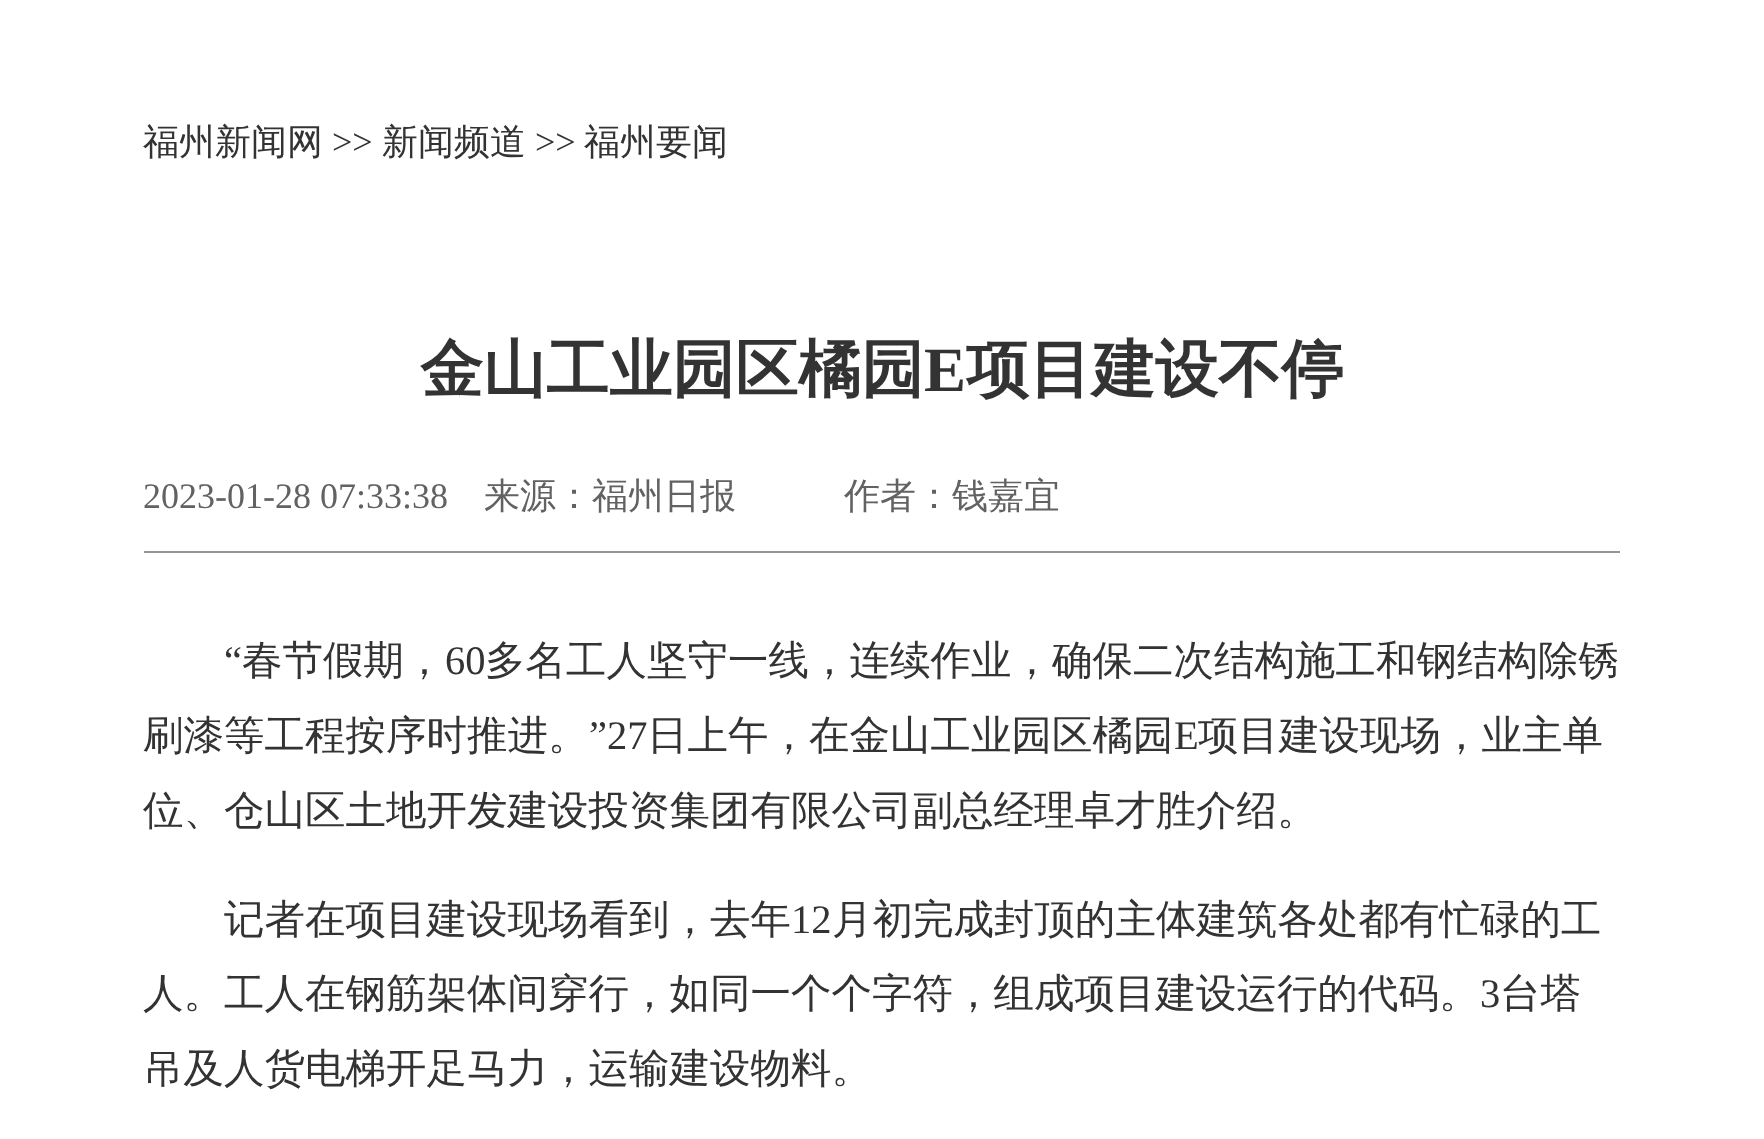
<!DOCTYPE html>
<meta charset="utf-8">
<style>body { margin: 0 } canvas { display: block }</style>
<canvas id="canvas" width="1764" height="1139"></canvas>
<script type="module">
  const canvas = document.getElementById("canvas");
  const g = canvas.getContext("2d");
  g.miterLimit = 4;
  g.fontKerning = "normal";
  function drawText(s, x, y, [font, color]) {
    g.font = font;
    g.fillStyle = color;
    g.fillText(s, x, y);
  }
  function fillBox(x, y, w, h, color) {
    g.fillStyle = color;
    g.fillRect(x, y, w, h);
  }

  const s1 = ["500 36px WenQuanYi Zen Hei", "#333333"];
  const s2 = ["36px Liberation Serif", "#333333"];
  const s3 = ["bold 63px WenQuanYi Zen Hei", "#333333"];
  const s4 = ["bold 63px Liberation Serif", "#333333"];
  const s5 = ["36px Liberation Serif", "#626262"];
  const s6 = ["500 36px WenQuanYi Zen Hei", "#626262"];
  const s7 = ["40.5px Liberation Serif", "#333333"];
  const s8 = ["500 40.5px WenQuanYi Zen Hei", "#333333"];

  fillBox(0, 0, 1764, 1139, "#FFFFFF");
  drawText("福州新闻网", 143, 154, s1);
  drawText(">>", 332, 154, s2);
  drawText("新闻频道", 382, 154, s1);
  drawText(">>", 535, 154, s2);
  drawText("福州要闻", 584, 154, s1);
  drawText("金山工业园区橘园", 420, 391, s3);
  drawText("E", 924, 391, s4);
  drawText("项目建设不停", 966, 391, s3);
  fillBox(144, 551, 1476, 2, "#959595");
  drawText("2023-01-28 07:33:38", 143, 508, s5);
  drawText("来源：福州日报", 484, 508, s6);
  drawText("作者：钱嘉宜", 844, 508, s6);
  drawText("“", 224, 674, s7);
  drawText("春节假期，", 242, 674, s8);
  drawText("60", 445, 674, s7);
  drawText("多名工人坚守一线，连续作业，确保二次结构施工和钢结构除锈", 485, 674, s8);
  drawText("刷漆等工程按序时推进。", 143, 749, s8);
  drawText("”27", 589, 749, s7);
  drawText("日上午，在金山工业园区橘园", 647, 749, s8);
  drawText("E", 1174, 749, s7);
  drawText("项目建设现场，业主单", 1198, 749, s8);
  drawText("位、仓山区土地开发建设投资集团有限公司副总经理卓才胜介绍。", 143, 824, s8);
  drawText("记者在项目建设现场看到，去年", 224, 933, s8);
  drawText("12", 791, 933, s7);
  drawText("月初完成封顶的主体建筑各处都有忙碌的工", 832, 933, s8);
  drawText("人。工人在钢筋架体间穿行，如同一个个字符，组成项目建设运行的代码。", 143, 1007, s8);
  drawText("3", 1480, 1007, s7);
  drawText("台塔", 1500, 1007, s8);
  drawText("吊及人货电梯开足马力，运输建设物料。", 143, 1082, s8);
</script>
